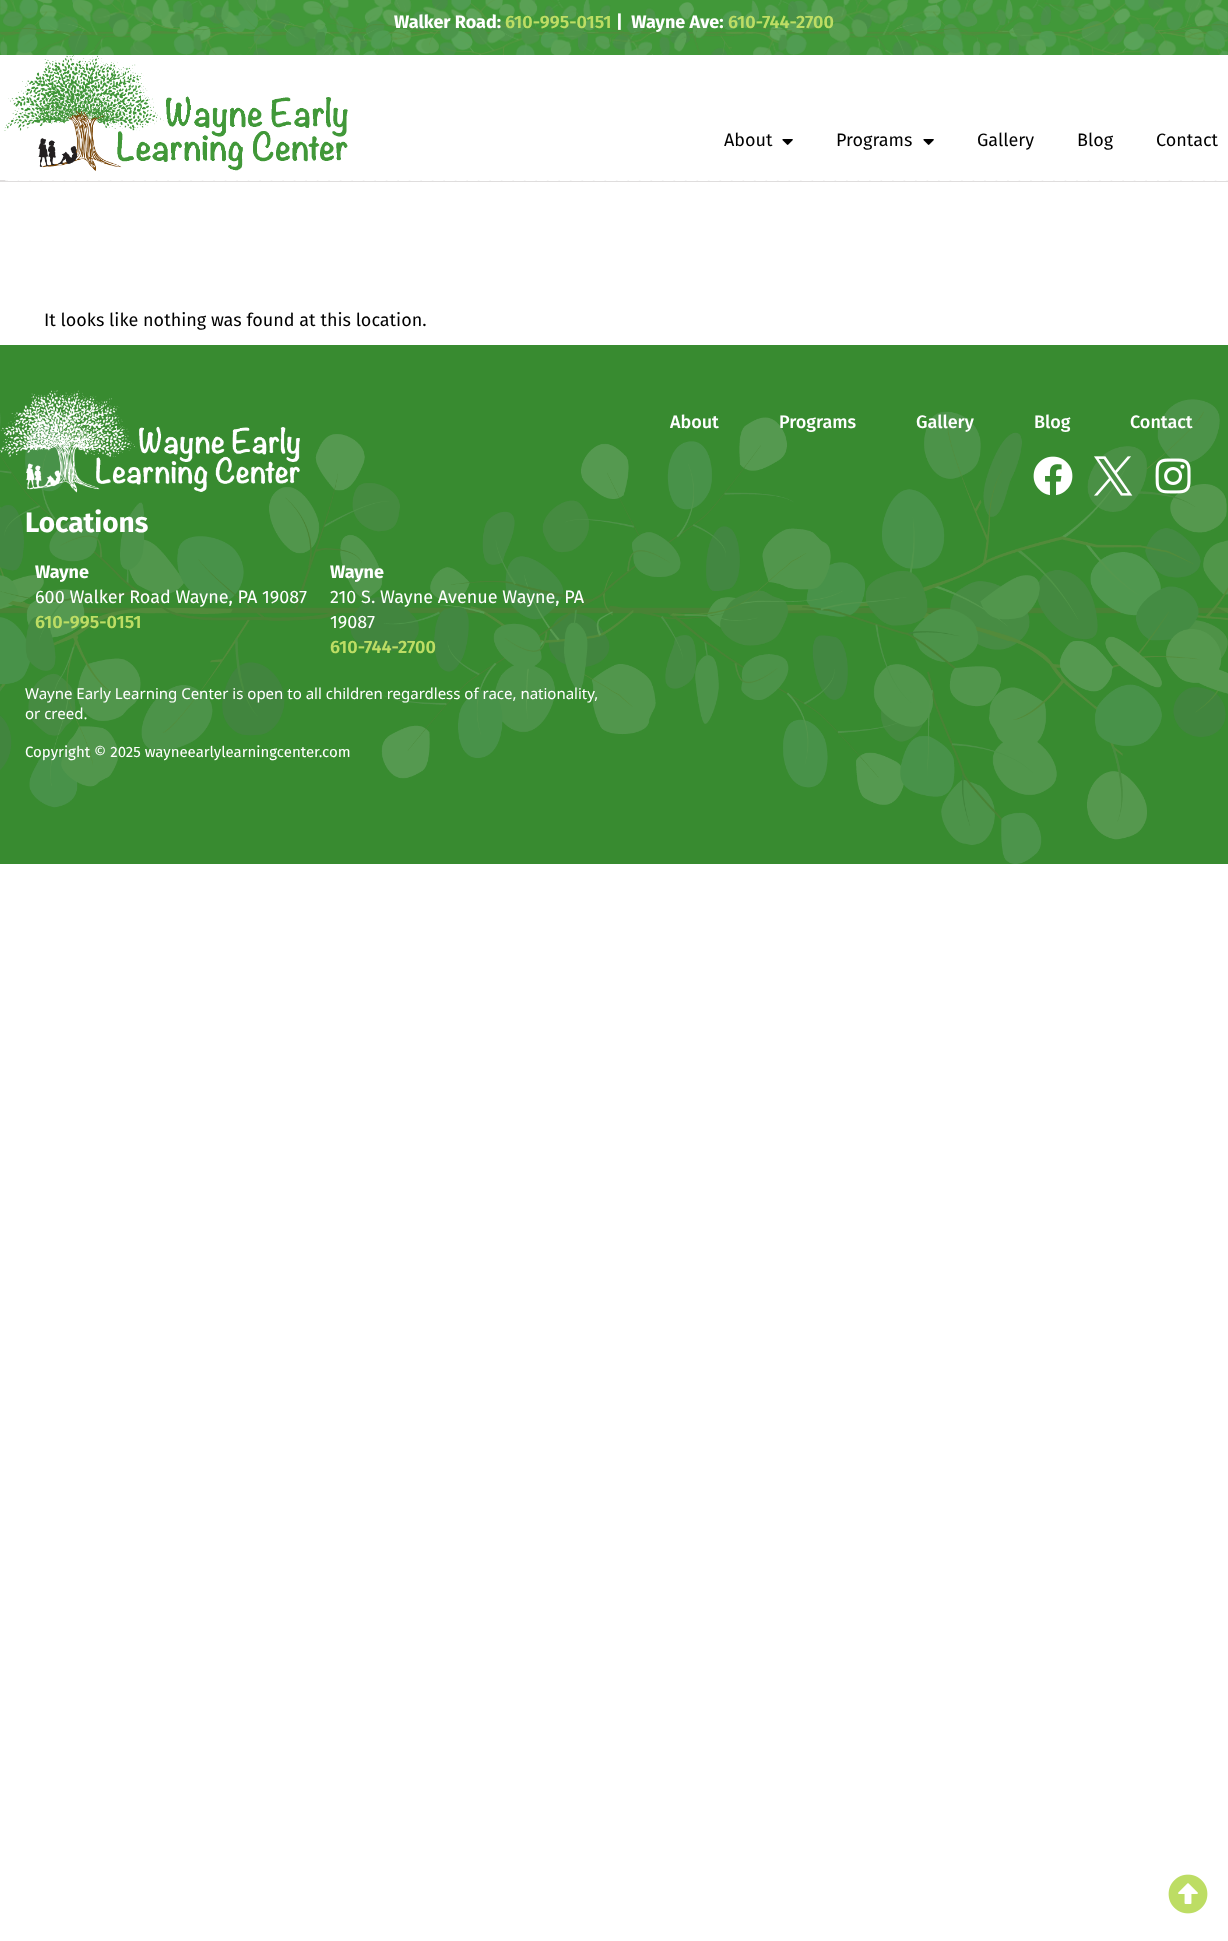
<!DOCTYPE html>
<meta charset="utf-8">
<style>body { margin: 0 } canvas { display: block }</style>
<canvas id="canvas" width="1228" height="1941"></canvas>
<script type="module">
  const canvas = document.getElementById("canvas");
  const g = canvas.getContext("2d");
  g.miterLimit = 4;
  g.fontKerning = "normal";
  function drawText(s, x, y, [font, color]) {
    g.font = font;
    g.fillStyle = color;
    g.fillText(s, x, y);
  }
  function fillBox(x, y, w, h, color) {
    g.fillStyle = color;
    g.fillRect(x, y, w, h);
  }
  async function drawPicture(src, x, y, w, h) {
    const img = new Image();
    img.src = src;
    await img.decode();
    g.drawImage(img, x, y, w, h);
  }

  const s1 = ["bold 18px Fira Sans", "#FFFFFF"];
  const s2 = ["600 18px Fira Sans", "#BDDD64"];
  const s3 = ["18px Fira Sans", "#000000"];
  const s4 = ["500 18px Fira Sans", "#FFFFFF"];
  const s5 = ["bold 28px Fira Sans", "#FFFFFF"];
  const s6 = ["18px Fira Sans", "#FFFFFF"];
  const s7 = ["15px Noto Sans", "#FFFFFF"];
  const s8 = ["15px Fira Sans", "#FFFFFF"];

  fillBox(0, 0, 1228, 1941, "#FFFFFF");
  fillBox(0, 0, 1228, 55, "#419839");
  await drawPicture("pic1.png", 0, 0, 1228, 55);
  drawText("Walker Road:", 394, 28, s1);
  drawText("610-995-0151", 505, 28, s2);
  drawText("|  Wayne Ave:", 616, 28, s1);
  drawText("610-744-2700", 728, 28, s2);
  fillBox(0, 180, 1228, 2, "#DFDDDD");
  await drawPicture("pic2.png", 4, 55, 344, 116);
  drawText("About", 724, 146, s3);
  await drawPicture("pic3.png", 782, 139, 11, 6);
  drawText("Programs", 836, 146, s3);
  await drawPicture("pic3.png", 923, 139, 11, 6);
  drawText("Gallery", 977, 146, s3);
  drawText("Blog", 1077, 146, s3);
  drawText("Contact", 1156, 146, s3);
  await drawPicture("pic4.png", 5, 180, 1223, 1);
  drawText("It looks like nothing was found at this location.", 44, 326, s3);
  fillBox(0, 345, 1228, 519, "#388B30");
  await drawPicture("pic5.png", 1168, 1874, 40, 40);
  await drawPicture("pic6.png", 0, 399, 1228, 465);
  drawText("About", 670, 428, s4);
  drawText("Programs", 779, 428, s4);
  drawText("Gallery", 916, 428, s4);
  drawText("Blog", 1034, 428, s4);
  drawText("Contact", 1130, 428, s4);
  await drawPicture("pic7.png", 1033, 456, 40, 40);
  await drawPicture("pic8.png", 1094, 456, 39, 40);
  await drawPicture("pic9.png", 1155, 458, 36, 36);
  await drawPicture("pic10.png", 0, 390, 300, 103);
  drawText("Locations", 25, 532, s5);
  drawText("Wayne", 35, 578, s1);
  drawText("600 Walker Road Wayne, PA 19087", 35, 603, s6);
  drawText("610-995-0151", 35, 628, s2);
  drawText("Wayne", 330, 578, s1);
  drawText("210 S. Wayne Avenue Wayne, PA", 330, 603, s6);
  drawText("19087", 330, 628, s6);
  drawText("610-744-2700", 330, 653, s2);
  drawText("Wayne Early Learning Center is open to all children regardless of race, nationality,", 25, 699, s7);
  drawText("or creed.", 25, 719, s7);
  drawText("Copyright © 2025 wayneearlylearningcenter.com", 25, 757, s8);
</script>
